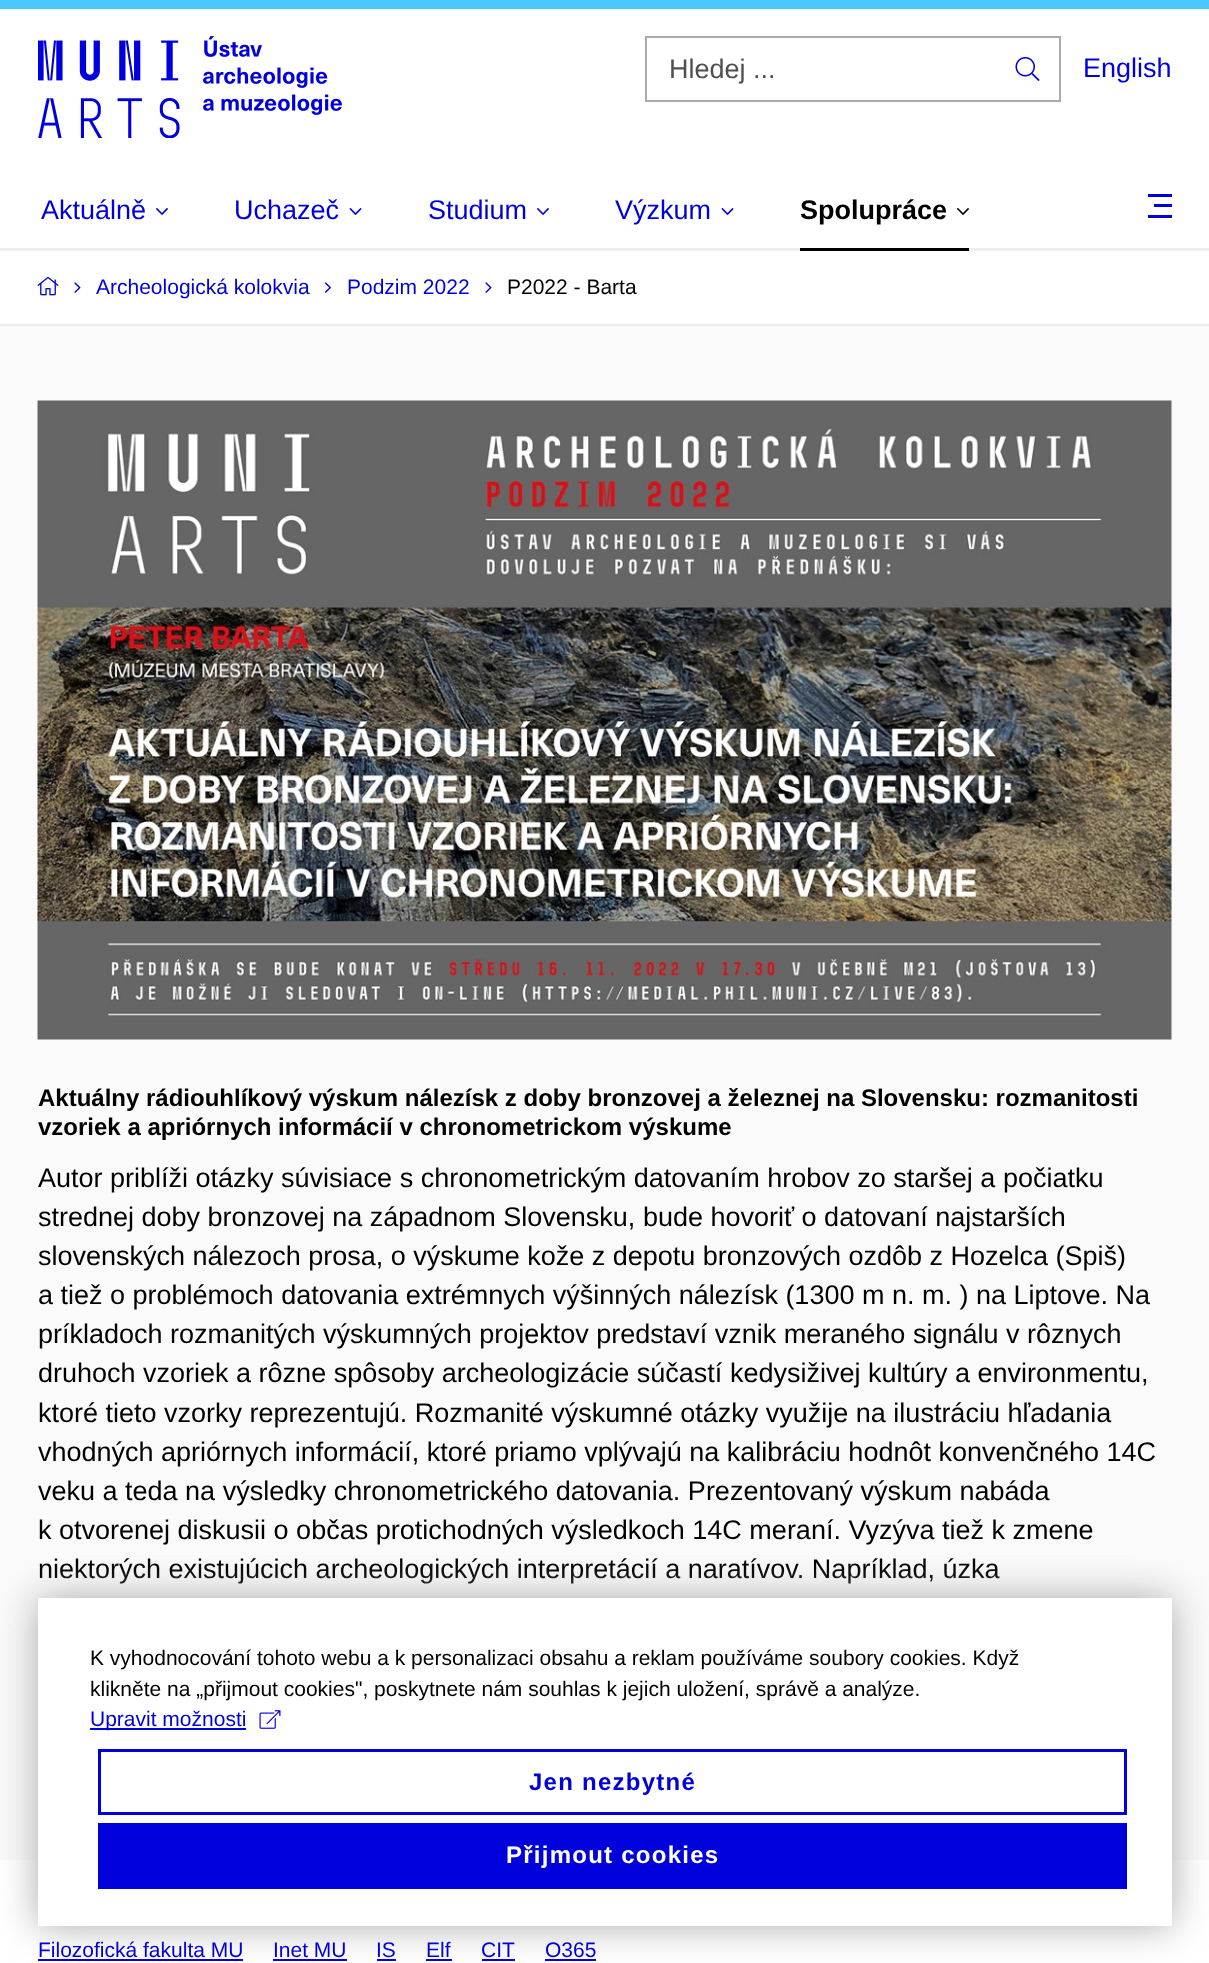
<!DOCTYPE html>
<meta charset="utf-8">
<style>body { margin: 0 } canvas { display: block }</style>
<canvas id="canvas" width="1209" height="1963"></canvas>
<script type="module">
  const canvas = document.getElementById("canvas");
  const g = canvas.getContext("2d");
  g.miterLimit = 4;
  g.fontKerning = "normal";
  function drawText(s, x, y, [font, color]) {
    g.font = font;
    g.fillStyle = color;
    g.fillText(s, x, y);
  }
  function fillBox(x, y, w, h, color) {
    g.fillStyle = color;
    g.fillRect(x, y, w, h);
  }
  async function drawPicture(src, x, y, w, h) {
    const img = new Image();
    img.src = src;
    await img.decode();
    g.drawImage(img, x, y, w, h);
  }

  const s1 = ["27px Liberation Sans", "#505050"];
  const s2 = ["27px Liberation Sans", "#0000DC"];
  const s3 = ["bold 27px Liberation Sans", "#000000"];
  const s4 = ["21px Liberation Sans", "#0000DC"];
  const s5 = ["21px Liberation Sans", "#000000"];
  const s6 = ["bold 24px Liberation Sans", "#000000"];
  const s7 = ["27px Liberation Sans", "#000000"];
  const s8 = ["bold 24px Liberation Sans", "#0000DC"];
  const s9 = ["bold 24px Liberation Sans", "#FFFFFF"];

  fillBox(0, 0, 1209, 1963, "#FAFAFA");
  fillBox(0, 9, 1209, 239, "#FFFFFF");
  fillBox(0, 0, 1209, 9, "#4BC8FF");
  fillBox(0, 248, 1209, 3, "#EEEEEE");
  await drawPicture("pic1.png", 38, 36, 304, 102);
  g.strokeStyle = "#AAAAAA";
  g.lineWidth = 2;
  g.strokeRect(646, 37, 414, 64);
  drawText("Hledej ...", 669, 78, s1);
  await drawPicture("pic2.png", 1015, 57, 25, 24);
  drawText("English", 1083, 77, s2);
  drawText("Aktuálně", 41, 219, s2);
  await drawPicture("pic3.png", 156, 208, 12, 7);
  drawText("Uchazeč", 234, 219, s2);
  await drawPicture("pic4.png", 349, 208, 13, 7);
  drawText("Studium", 428, 219, s2);
  await drawPicture("pic3.png", 537, 208, 12, 7);
  drawText("Výzkum", 615, 219, s2);
  await drawPicture("pic4.png", 721, 208, 13, 7);
  drawText("Spolupráce", 800, 219, s3);
  fillBox(800, 248, 169, 3, "#000000");
  await drawPicture("pic5.png", 957, 208, 12, 7);
  fillBox(1148, 194, 24, 3, "#0000DC");
  fillBox(1154, 204, 18, 3, "#0000DC");
  fillBox(1148, 215, 24, 3, "#0000DC");
  fillBox(0, 251, 1209, 73, "#FFFFFF");
  fillBox(0, 324, 1209, 2, "#EDEDED");
  await drawPicture("pic6.png", 37, 277, 22, 19);
  await drawPicture("pic7.png", 74, 282, 7, 11);
  drawText("Archeologická kolokvia", 96, 294, s4);
  await drawPicture("pic8.png", 324, 282, 7, 11);
  drawText("Podzim 2022", 347, 294, s4);
  await drawPicture("pic7.png", 485, 282, 7, 11);
  drawText("P2022 - Barta", 507, 294, s5);
  await drawPicture("pic9.png", 37, 400, 1135, 640);
  drawText("Aktuálny rádiouhlíkový výskum nálezísk z doby bronzovej a železnej na Slovensku: rozmanitosti", 38, 1106, s6);
  drawText("vzoriek a apriórnych informácií v chronometrickom výskume", 38, 1135, s6);
  drawText("Autor priblíži otázky súvisiace s chronometrickým datovaním hrobov zo staršej a počiatku", 38, 1187, s7);
  drawText("strednej doby bronzovej na západnom Slovensku, bude hovoriť o datovaní najstarších", 38, 1226, s7);
  drawText("slovenských nálezoch prosa, o výskume kože z depotu bronzových ozdôb z Hozelca (Spiš)", 38, 1265, s7);
  drawText("a tiež o problémoch datovania extrémnych výšinných nálezísk (1300 m n. m. ) na Liptove. Na", 38, 1304, s7);
  drawText("príkladoch rozmanitých výskumných projektov predstaví vznik meraného signálu v rôznych", 38, 1343, s7);
  drawText("druhoch vzoriek a rôzne spôsoby archeologizácie súčastí kedysiživej kultúry a environmentu,", 38, 1382, s7);
  drawText("ktoré tieto vzorky reprezentujú. Rozmanité výskumné otázky využije na ilustráciu hľadania", 38, 1422, s7);
  drawText("vhodných apriórnych informácií, ktoré priamo vplývajú na kalibráciu hodnôt konvenčného 14C", 38, 1461, s7);
  drawText("veku a teda na výsledky chronometrického datovania. Prezentovaný výskum nabáda", 38, 1500, s7);
  drawText("k otvorenej diskusii o občas protichodných výsledkoch 14C meraní. Vyzýva tiež k zmene", 38, 1539, s7);
  drawText("niektorých existujúcich archeologických interpretácií a naratívov. Napríklad, úzka", 38, 1578, s7);
  fillBox(0, 1860, 1209, 103, "#FFFFFF");
  fillBox(38, 1959, 205, 2, "#0000DC");
  fillBox(273, 1959, 74, 2, "#0000DC");
  fillBox(377, 1959, 19, 2, "#0000DC");
  fillBox(426, 1959, 26, 2, "#0000DC");
  fillBox(482, 1959, 33, 2, "#0000DC");
  fillBox(545, 1959, 51, 2, "#0000DC");
  g.fillStyle = "#AAAAAA";
  g.filter = "blur(19px)";
  g.beginPath();
  g.rect(38, 1598, 1134, 328);
  g.fill();
  g.filter = "none";
  fillBox(38, 1598, 1134, 328, "#FFFFFF");
  drawText("K vyhodnocování tohoto webu a k personalizaci obsahu a reklam používáme soubory cookies. Když", 90, 1665, s5);
  drawText("klikněte na „přijmout cookies\", poskytnete nám souhlas k jejich uložení, správě a analýze.", 90, 1696, s5);
  fillBox(90, 1728, 156, 2, "#0000DC");
  drawText("Upravit možnosti", 90, 1726, s4);
  await drawPicture("pic10.png", 259, 1710, 22, 19);
  g.strokeStyle = "#0000DC";
  g.lineWidth = 3;
  g.strokeRect(99.5, 1750.5, 1026, 63);
  g.letterSpacing = "1.25px";
  drawText("Jen nezbytné", 529, 1790, s8);
  fillBox(98, 1823, 1029, 66, "#0000DC");
  drawText("Přijmout cookies", 506, 1863, s9);
  g.letterSpacing = "0px";
  drawText("Filozofická fakulta MU", 38, 1957, s4);
  drawText("Inet MU", 273, 1957, s4);
  drawText("IS", 376, 1957, s4);
  drawText("Elf", 426, 1957, s4);
  drawText("CIT", 481, 1957, s4);
  drawText("O365", 545, 1957, s4);
</script>
